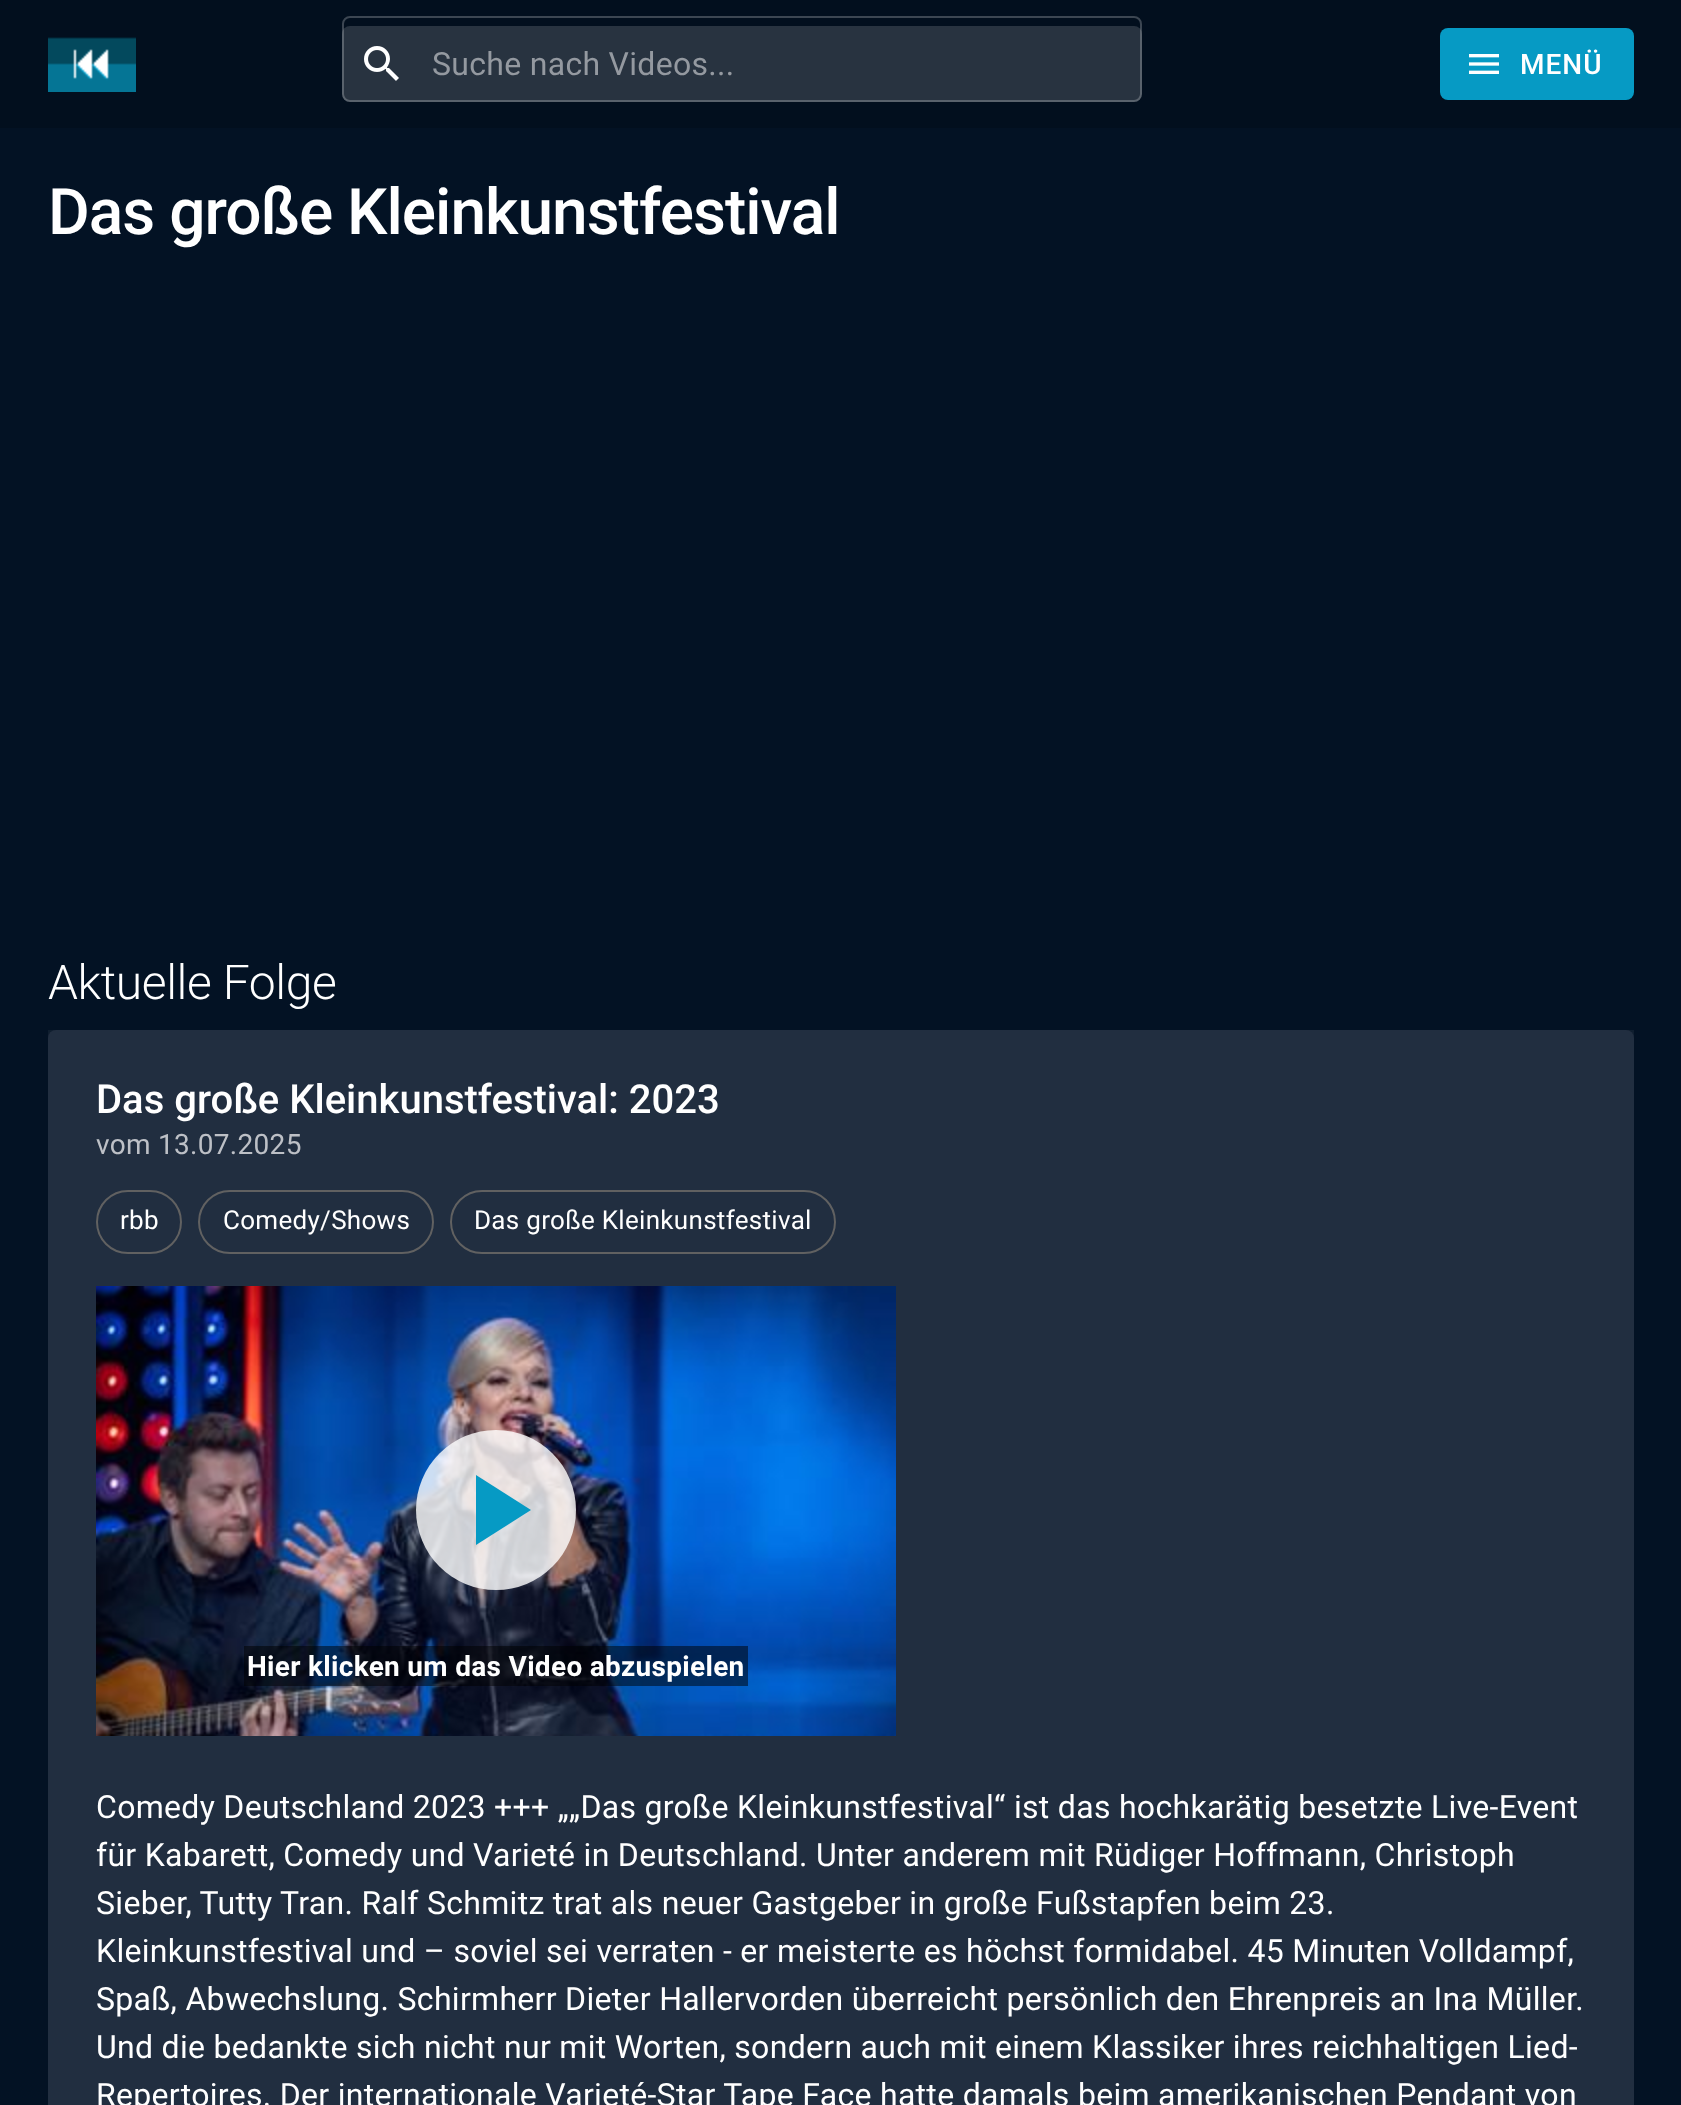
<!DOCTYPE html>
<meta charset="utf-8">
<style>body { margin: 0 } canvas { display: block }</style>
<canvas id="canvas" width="1681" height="2105"></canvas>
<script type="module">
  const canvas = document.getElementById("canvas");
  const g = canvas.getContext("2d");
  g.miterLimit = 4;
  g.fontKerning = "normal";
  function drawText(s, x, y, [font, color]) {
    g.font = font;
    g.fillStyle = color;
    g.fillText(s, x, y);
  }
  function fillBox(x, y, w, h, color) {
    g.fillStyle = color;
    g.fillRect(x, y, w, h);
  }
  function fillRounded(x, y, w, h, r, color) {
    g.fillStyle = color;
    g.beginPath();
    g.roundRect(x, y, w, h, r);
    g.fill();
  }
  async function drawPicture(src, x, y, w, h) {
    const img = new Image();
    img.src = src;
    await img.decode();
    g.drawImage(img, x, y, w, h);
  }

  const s1 = ["32px Roboto", "#9499A0"];
  const s2 = ["500 28px Roboto", "#FFFFFF"];
  const s3 = ["500 64px Roboto", "#FFFFFF"];
  const s4 = ["300 48px Roboto", "#FFFFFF"];
  const s5 = ["500 40px Roboto", "#FFFFFF"];
  const s6 = ["28px Roboto", "#BDC0C6"];
  const s7 = ["26px Roboto", "#FFFFFF"];
  const s8 = ["bold 28px Roboto", "#FFFFFF"];
  const s9 = ["32px Roboto", "#FFFFFF"];

  fillBox(0, 0, 1681, 2105, "#031224");
  fillBox(0, 0, 1681, 128, "#020F1E");
  await drawPicture("pic1.png", 48, 37, 88, 55);
  fillRounded(342, 26, 800, 76, 8, "#283340");
  await drawPicture("pic2.png", 364, 46, 35, 35);
  g.beginPath();
  g.roundRect(343, 17, 798, 84, 7);
  g.strokeStyle = "rgba(255, 255, 255, 0.23)";
  g.lineWidth = 2;
  g.stroke();
  g.letterSpacing = "0.3px";
  drawText("Suche nach Videos...", 432, 75, s1);
  fillRounded(1440, 28, 194, 72, 8, "#069AC4");
  await drawPicture("pic3.png", 1469, 54, 30, 20);
  g.letterSpacing = "1px";
  drawText("MENÜ", 1520, 74, s2);
  g.letterSpacing = "-1px";
  drawText("Das große Kleinkunstfestival", 48, 234, s3);
  g.letterSpacing = "-0.4px";
  drawText("Aktuelle Folge", 48, 999, s4);
  fillRounded(48, 1030, 1586, 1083, 8, "#162336");
  fillBox(48, 1030, 1586, 1075, "rgba(255, 255, 255, 0.05)");
  g.letterSpacing = "0px";
  drawText("Das große Kleinkunstfestival: 2023", 96, 1113, s5);
  g.letterSpacing = "0.3px";
  drawText("vom 13.07.2025", 96, 1154, s6);
  g.beginPath();
  g.roundRect(97, 1191, 84, 62, 31);
  g.strokeStyle = "#616161";
  g.stroke();
  drawText("rbb", 120, 1229, s7);
  g.beginPath();
  g.roundRect(199, 1191, 234, 62, 31);
  g.stroke();
  drawText("Comedy/Shows", 223, 1229, s7);
  g.beginPath();
  g.roundRect(451, 1191, 384, 62, 31);
  g.stroke();
  drawText("Das große Kleinkunstfestival", 474, 1229, s7);
  await drawPicture("pic4.png", 96, 1286, 800, 450);
  g.fillStyle = "rgba(255, 255, 255, 0.8)";
  g.beginPath();
  g.arc(496, 1510, 80, 0, Math.PI * 2);
  g.fill();
  g.fillStyle = "#069AC4";
  g.beginPath();
  g.moveTo(476, 1475);
  g.lineTo(531, 1510);
  g.lineTo(476, 1545);
  g.closePath();
  g.fill();
  fillBox(244, 1646, 504, 40, "rgba(0, 0, 0, 0.5)");
  drawText("Hier klicken um das Video abzuspielen", 247, 1676, s8);
  drawText("Comedy Deutschland 2023 +++ „„Das große Kleinkunstfestival“ ist das hochkarätig besetzte Live-Event", 96, 1818, s9);
  drawText("für Kabarett, Comedy und Varieté in Deutschland. Unter anderem mit Rüdiger Hoffmann, Christoph", 96, 1866, s9);
  drawText("Sieber, Tutty Tran. Ralf Schmitz trat als neuer Gastgeber in große Fußstapfen beim 23.", 96, 1914, s9);
  drawText("Kleinkunstfestival und – soviel sei verraten - er meisterte es höchst formidabel. 45 Minuten Volldampf,", 96, 1962, s9);
  drawText("Spaß, Abwechslung. Schirmherr Dieter Hallervorden überreicht persönlich den Ehrenpreis an Ina Müller.", 96, 2010, s9);
  drawText("Und die bedankte sich nicht nur mit Worten, sondern auch mit einem Klassiker ihres reichhaltigen Lied-", 96, 2058, s9);
  drawText("Repertoires. Der internationale Varieté-Star Tape Face hatte damals beim amerikanischen Pendant von", 96, 2106, s9);
</script>
